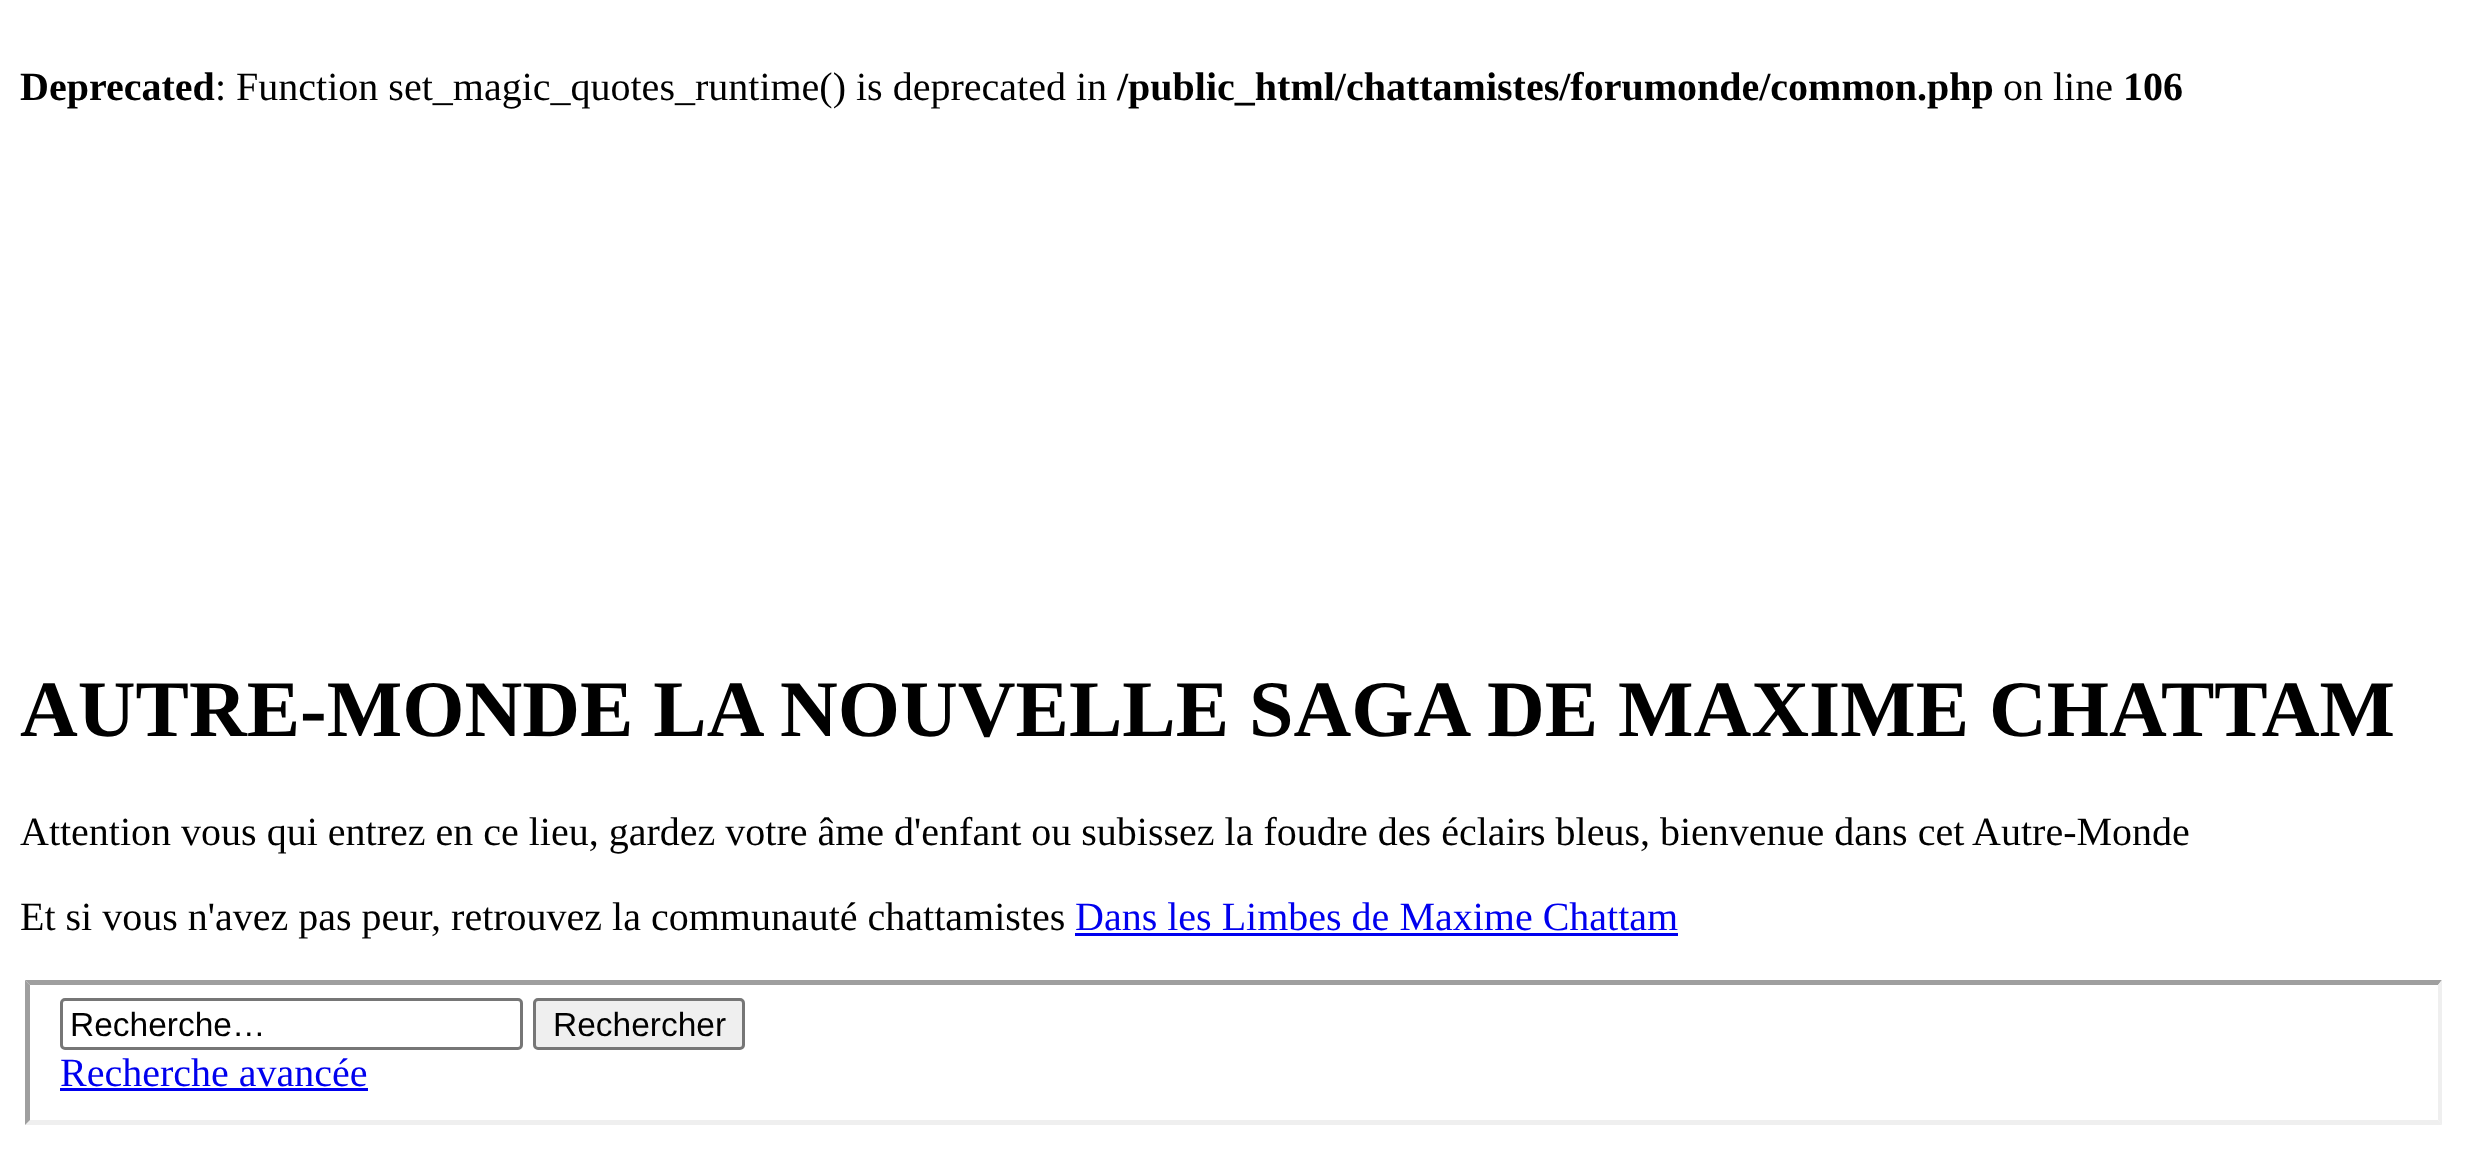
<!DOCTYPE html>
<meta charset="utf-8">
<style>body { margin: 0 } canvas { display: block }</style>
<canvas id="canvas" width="2466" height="1154"></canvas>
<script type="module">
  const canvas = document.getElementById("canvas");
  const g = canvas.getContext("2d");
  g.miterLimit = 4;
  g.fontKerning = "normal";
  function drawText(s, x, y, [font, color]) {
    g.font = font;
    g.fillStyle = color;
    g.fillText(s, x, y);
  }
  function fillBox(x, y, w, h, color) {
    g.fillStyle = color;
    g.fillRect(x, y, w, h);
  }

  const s1 = ["bold 40px Liberation Serif", "#000000"];
  const s2 = ["40px Liberation Serif", "#000000"];
  const s3 = ["bold 80px Liberation Serif", "#000000"];
  const s4 = ["40px Liberation Serif", "#0000EE"];
  const s5 = ["33.5px Liberation Sans", "#000000"];

  fillBox(0, 0, 2466, 1154, "#FFFFFF");
  drawText("Deprecated", 20, 100, s1);
  drawText(": Function set_magic_quotes_runtime() is deprecated in", 215, 100, s2);
  drawText("/public_html/chattamistes/forumonde/common.php", 1117, 100, s1);
  drawText("on line", 2003, 100, s2);
  drawText("106", 2123, 100, s1);
  drawText("AUTRE-MONDE LA NOUVELLE SAGA DE MAXIME CHATTAM", 20, 736, s3);
  drawText("Attention vous qui entrez en ce lieu, gardez votre âme d'enfant ou subissez la foudre des éclairs bleus, bienvenue dans cet Autre-Monde", 20, 845, s2);
  drawText("Et si vous n'avez pas peur, retrouvez la communauté chattamistes", 20, 930, s2);
  drawText("Dans les Limbes de Maxime Chattam", 1075, 930, s4);
  fillBox(1075, 933, 603, 3, "#0000EE");
  g.fillStyle = "#9F9F9F";
  g.beginPath();
  g.moveTo(25, 980);
  g.lineTo(2442, 980);
  g.lineTo(2438, 985);
  g.lineTo(30, 985);
  g.closePath();
  g.fill();
  g.fillStyle = "#EFEFEF";
  g.beginPath();
  g.moveTo(2442, 980);
  g.lineTo(2442, 1125);
  g.lineTo(2438, 1120);
  g.lineTo(2438, 985);
  g.closePath();
  g.fill();
  g.beginPath();
  g.moveTo(2442, 1125);
  g.lineTo(25, 1125);
  g.lineTo(30, 1120);
  g.lineTo(2438, 1120);
  g.closePath();
  g.fill();
  g.fillStyle = "#9F9F9F";
  g.beginPath();
  g.moveTo(25, 1125);
  g.lineTo(25, 980);
  g.lineTo(30, 985);
  g.lineTo(30, 1120);
  g.closePath();
  g.fill();
  g.beginPath();
  g.roundRect(61.5, 999.5, 460, 49, 3.5);
  g.strokeStyle = "#767676";
  g.lineWidth = 3;
  g.stroke();
  drawText("Recherche…", 70, 1036, s5);
  g.fillStyle = "#EFEFEF";
  g.beginPath();
  g.roundRect(534.5, 999.5, 209, 49, 3.5);
  g.fill();
  g.stroke();
  drawText("Rechercher", 553, 1036, s5);
  drawText("Recherche avancée", 60, 1086, s4);
  fillBox(60, 1088, 308, 3, "#0000EE");
</script>
